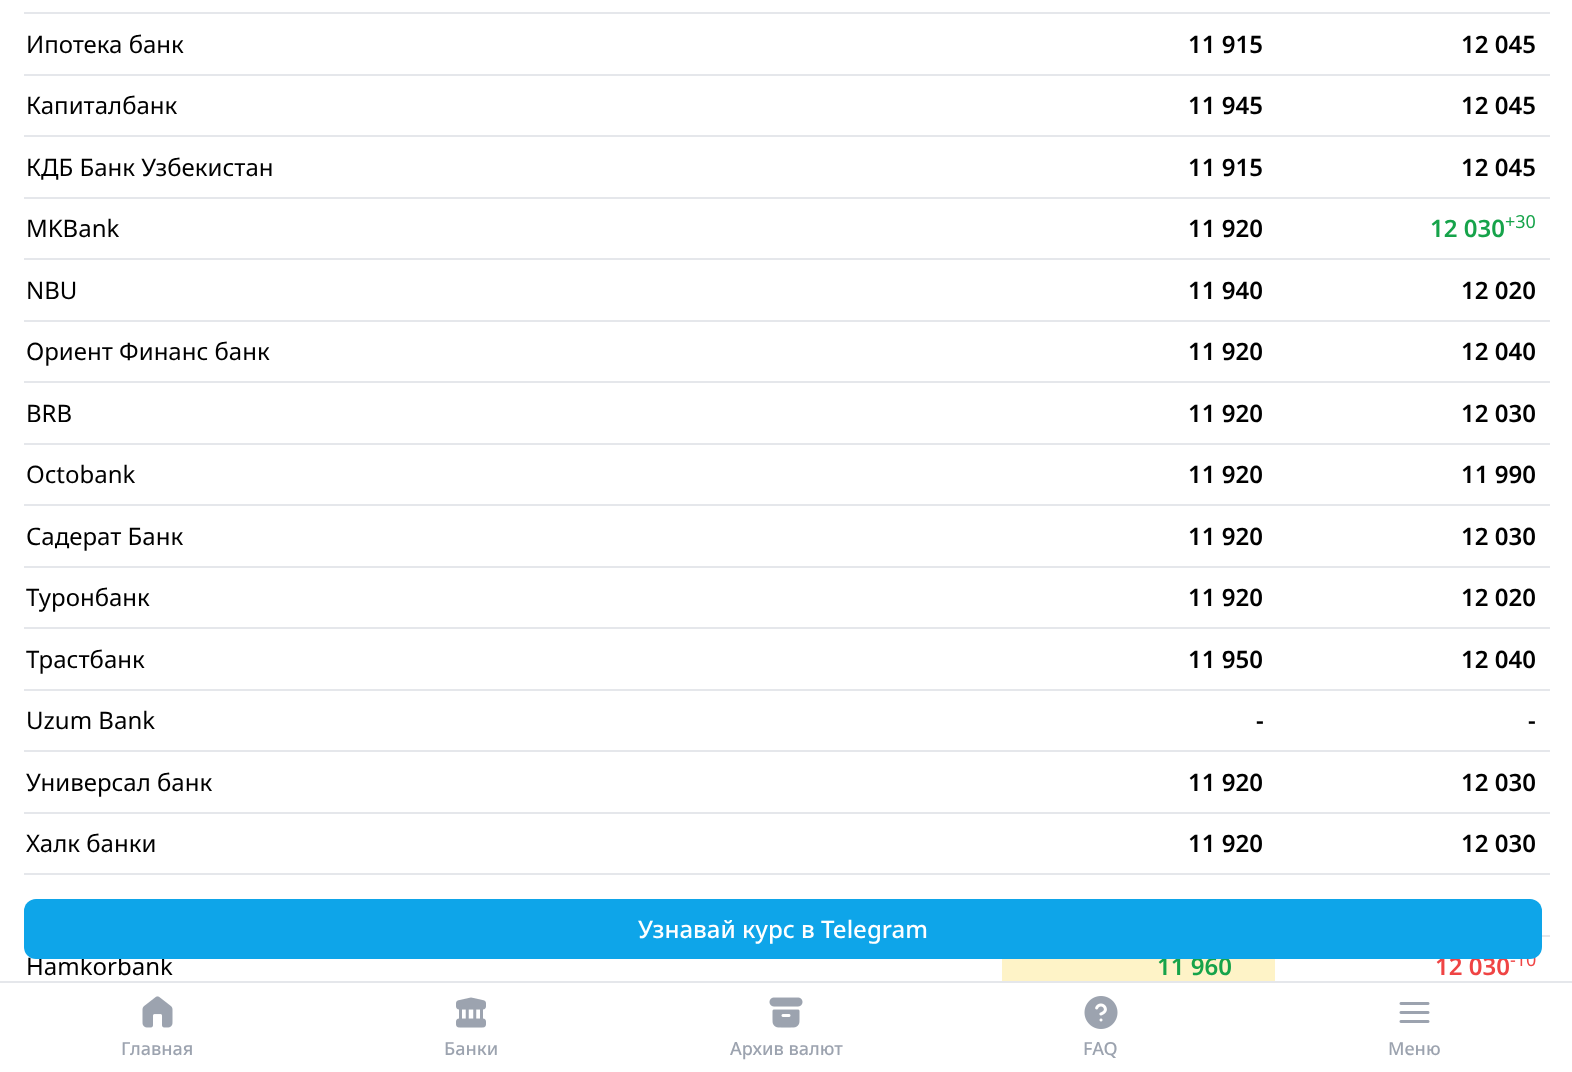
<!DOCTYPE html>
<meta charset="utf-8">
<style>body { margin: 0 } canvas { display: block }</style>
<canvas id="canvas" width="1572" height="1072"></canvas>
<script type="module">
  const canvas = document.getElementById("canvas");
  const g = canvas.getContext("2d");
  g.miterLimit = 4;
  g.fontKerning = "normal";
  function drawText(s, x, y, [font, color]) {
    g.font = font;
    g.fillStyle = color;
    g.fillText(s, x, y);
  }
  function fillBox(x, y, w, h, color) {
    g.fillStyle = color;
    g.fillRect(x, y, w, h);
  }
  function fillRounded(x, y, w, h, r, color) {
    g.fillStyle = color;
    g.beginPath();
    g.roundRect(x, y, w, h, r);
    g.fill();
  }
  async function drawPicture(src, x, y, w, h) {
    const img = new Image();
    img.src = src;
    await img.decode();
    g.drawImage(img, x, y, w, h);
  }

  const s1 = ["24px Noto Sans", "#000000"];
  const s2 = ["600 24px Noto Sans", "#000000"];
  const s3 = ["600 24px Noto Sans", "#16A34A"];
  const s4 = ["18px Noto Sans", "#16A34A"];
  const s5 = ["600 24px Noto Sans", "#EF4444"];
  const s6 = ["18px Noto Sans", "#EF4444"];
  const s7 = ["500 24px Noto Sans", "#FFFFFF"];
  const s8 = ["500 18px Noto Sans", "#9CA3AF"];

  fillBox(0, 0, 1572, 1072, "#FFFFFF");
  fillBox(24, 12, 1526, 2, "#E5E7EB");
  fillBox(24, 74, 1526, 2, "#E5E7EB");
  drawText("Ипотека банк", 26, 53, s1);
  drawText("11 915", 1188, 53, s2);
  drawText("12 045", 1461, 53, s2);
  fillBox(24, 135, 1526, 2, "#E5E7EB");
  drawText("Капиталбанк", 26, 114, s1);
  drawText("11 945", 1188, 114, s2);
  drawText("12 045", 1461, 114, s2);
  fillBox(24, 197, 1526, 2, "#E5E7EB");
  drawText("КДБ Банк Узбекистан", 26, 176, s1);
  drawText("11 915", 1188, 176, s2);
  drawText("12 045", 1461, 176, s2);
  fillBox(24, 258, 1526, 2, "#E5E7EB");
  drawText("MKBank", 26, 237, s1);
  drawText("11 920", 1188, 237, s2);
  drawText("12 030", 1430, 237, s3);
  drawText("+30", 1505, 228, s4);
  fillBox(24, 320, 1526, 2, "#E5E7EB");
  drawText("NBU", 26, 299, s1);
  drawText("11 940", 1188, 299, s2);
  drawText("12 020", 1461, 299, s2);
  fillBox(24, 381, 1526, 2, "#E5E7EB");
  drawText("Ориент Финанс банк", 26, 360, s1);
  drawText("11 920", 1188, 360, s2);
  drawText("12 040", 1461, 360, s2);
  fillBox(24, 443, 1526, 2, "#E5E7EB");
  drawText("BRB", 26, 422, s1);
  drawText("11 920", 1188, 422, s2);
  drawText("12 030", 1461, 422, s2);
  fillBox(24, 504, 1526, 2, "#E5E7EB");
  drawText("Octobank", 26, 483, s1);
  drawText("11 920", 1188, 483, s2);
  drawText("11 990", 1461, 483, s2);
  fillBox(24, 566, 1526, 2, "#E5E7EB");
  drawText("Садерат Банк", 26, 545, s1);
  drawText("11 920", 1188, 545, s2);
  drawText("12 030", 1461, 545, s2);
  fillBox(24, 627, 1526, 2, "#E5E7EB");
  drawText("Туронбанк", 26, 606, s1);
  drawText("11 920", 1188, 606, s2);
  drawText("12 020", 1461, 606, s2);
  fillBox(24, 689, 1526, 2, "#E5E7EB");
  drawText("Трастбанк", 26, 668, s1);
  drawText("11 950", 1188, 668, s2);
  drawText("12 040", 1461, 668, s2);
  fillBox(24, 750, 1526, 2, "#E5E7EB");
  drawText("Uzum Bank", 26, 729, s1);
  drawText("-", 1256, 729, s2);
  drawText("-", 1528, 729, s2);
  fillBox(24, 812, 1526, 2, "#E5E7EB");
  drawText("Универсал банк", 26, 791, s1);
  drawText("11 920", 1188, 791, s2);
  drawText("12 030", 1461, 791, s2);
  fillBox(24, 873, 1526, 2, "#E5E7EB");
  drawText("Халк банки", 26, 852, s1);
  drawText("11 920", 1188, 852, s2);
  drawText("12 030", 1461, 852, s2);
  fillBox(1542, 935, 8, 2, "#E5E7EB");
  drawText("Hamkorbank", 26, 975, s1);
  fillBox(1002, 959, 273, 22, "#FEF3C7");
  drawText("11 960", 1157, 975, s3);
  drawText("12 030", 1435, 975, s5);
  drawText("-10", 1510, 966, s6);
  fillRounded(24, 899, 1518, 60, 12, "#0EA5E9");
  drawText("Узнавай курс в Telegram", 638, 938, s7);
  fillBox(0, 981, 1572, 2, "#E5E7EB");
  await drawPicture("pic1.png", 142, 996, 31, 32);
  drawText("Главная", 121, 1055, s8);
  await drawPicture("pic2.png", 456, 997, 30, 31);
  drawText("Банки", 444, 1055, s8);
  await drawPicture("pic3.png", 769, 997, 34, 31);
  drawText("Архив валют", 730, 1055, s8);
  await drawPicture("pic4.png", 1084, 996, 34, 33);
  drawText("FAQ", 1083, 1055, s8);
  await drawPicture("pic5.png", 1399, 1002, 31, 21);
  drawText("Меню", 1388, 1055, s8);
</script>
